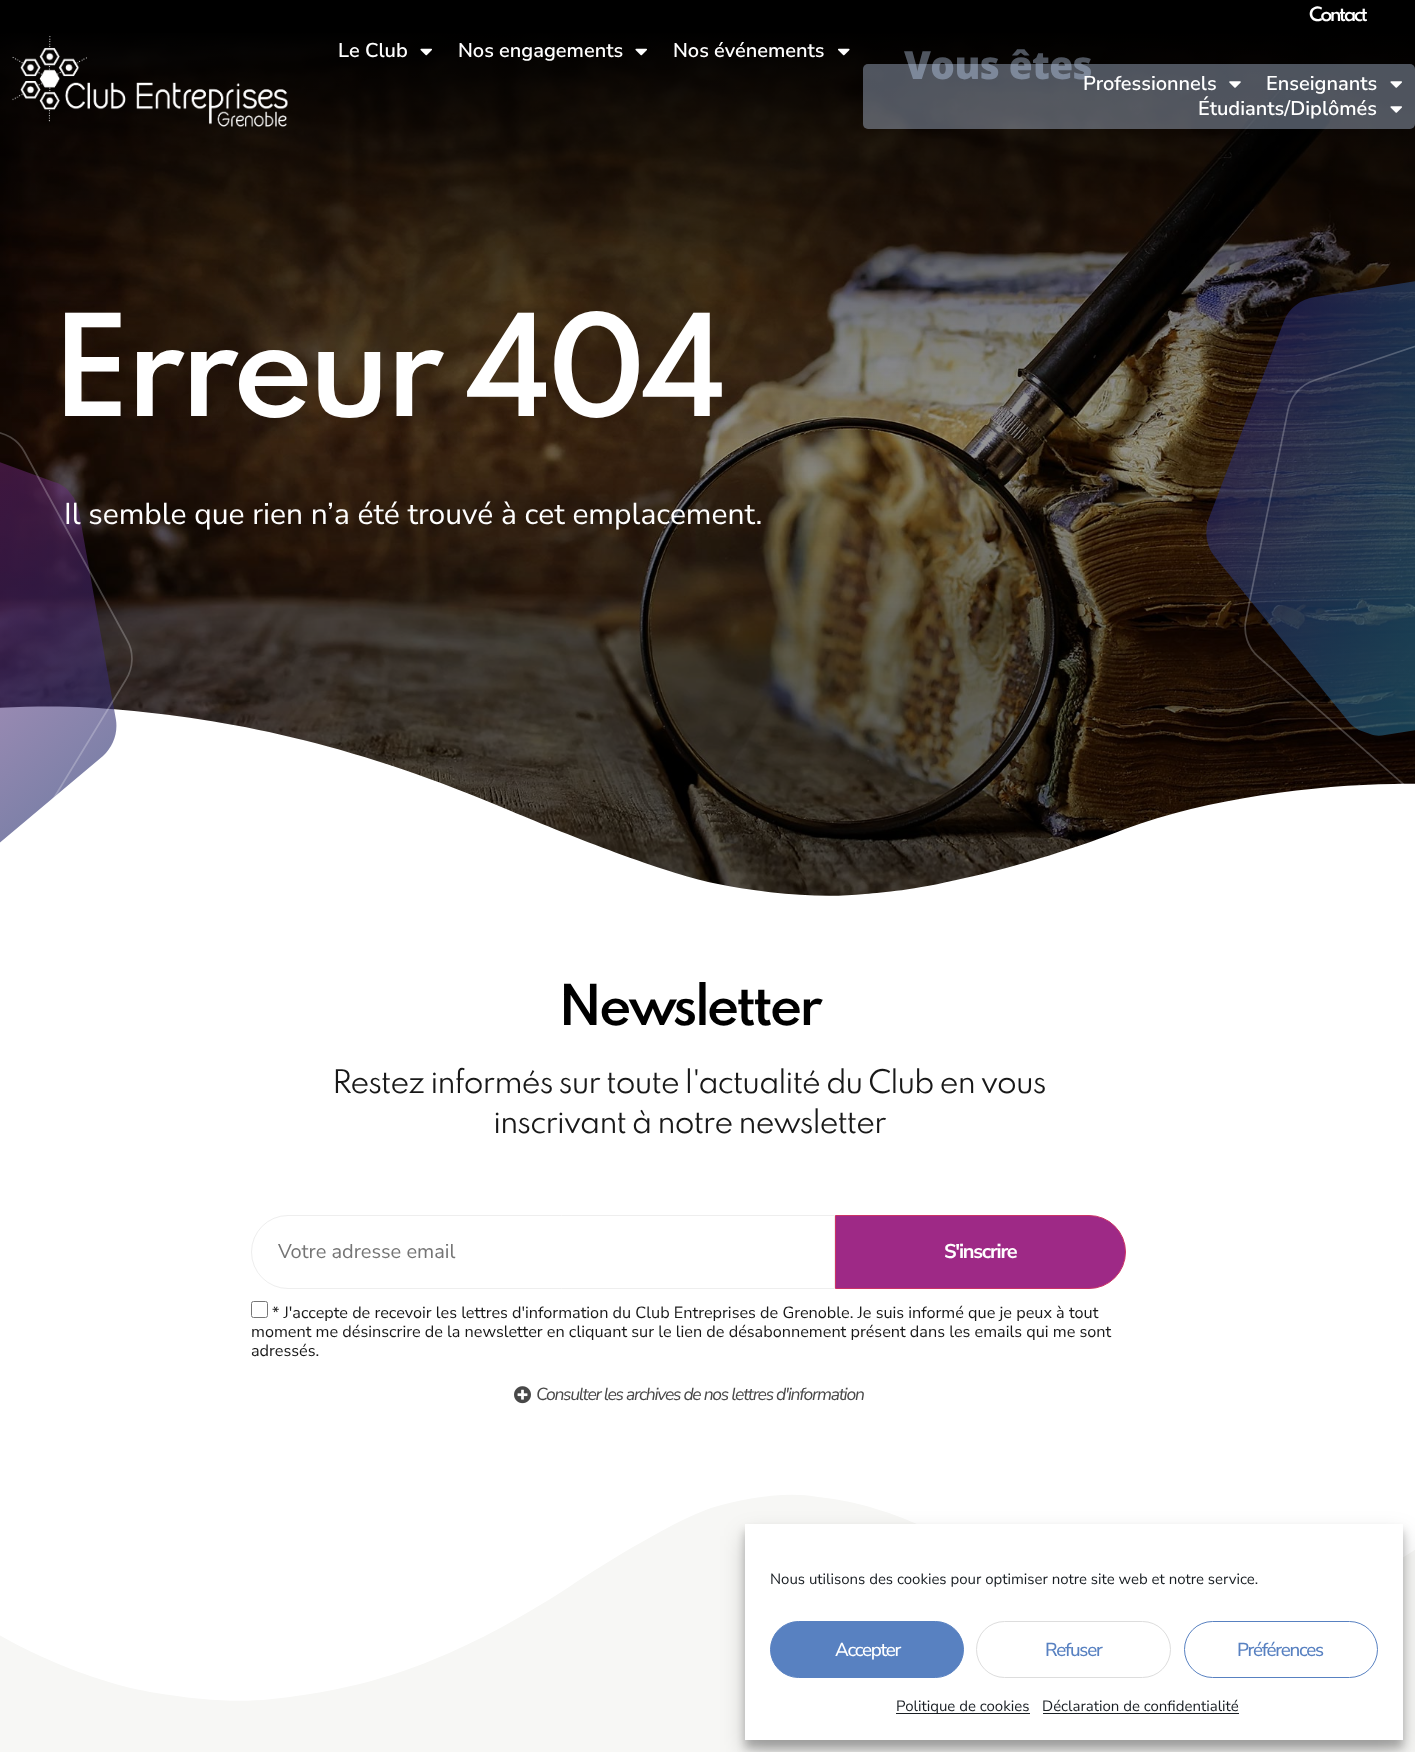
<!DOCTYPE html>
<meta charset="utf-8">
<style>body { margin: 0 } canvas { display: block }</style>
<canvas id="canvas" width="1415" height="1752"></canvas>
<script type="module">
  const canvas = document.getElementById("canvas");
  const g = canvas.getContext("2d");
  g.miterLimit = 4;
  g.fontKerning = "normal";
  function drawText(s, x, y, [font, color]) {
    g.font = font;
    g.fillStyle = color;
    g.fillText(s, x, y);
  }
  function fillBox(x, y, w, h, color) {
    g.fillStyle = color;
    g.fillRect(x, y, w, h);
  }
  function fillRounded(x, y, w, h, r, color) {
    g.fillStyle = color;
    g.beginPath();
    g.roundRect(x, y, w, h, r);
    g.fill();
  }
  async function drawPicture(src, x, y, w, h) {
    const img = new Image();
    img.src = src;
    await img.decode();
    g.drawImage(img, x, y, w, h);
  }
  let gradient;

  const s1 = ["600 17.5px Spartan", "#FFFFFF"];
  const s2 = ["600 20px Nunito Sans", "#FFFFFF"];
  const s3 = ["800 38.75px Open Sans", "#4F555F"];
  const s4 = ["600 125px Spartan", "#FFFFFF"];
  const s5 = ["30px Nunito Sans", "#FFFFFF"];
  const s6 = ["600 50px Spartan", "#000000"];
  const s7 = ["28.75px Spartan", "#181818"];
  const s8 = ["20px Nunito Sans", "#757575"];
  const s9 = ["bold 20px Nunito Sans", "#FFFFFF"];
  const s10 = ["16.25px Nunito Sans", "#181818"];
  const s11 = ["italic 17.5px Nunito Sans", "#484848"];
  const s12 = ["15px Nunito Sans", "#191E23"];
  const s13 = ["500 18.75px Nunito Sans", "#FFFFFF"];
  const s14 = ["500 18.75px Nunito Sans", "#5881C1"];

  fillBox(0, 0, 1415, 1752, "#FFFFFF");
  fillBox(0, 0, 1415, 33, "#000000");
  g.letterSpacing = "-2.5px";
  drawText("Contact", 1309, 21, s1);
  await drawPicture("pic8.png", 0, 33, 1415, 863);
  gradient = g.createLinearGradient(708, 30, 708, 805);
  gradient.addColorStop(0, "#000000");
  gradient.addColorStop(0.54, "rgba(0, 0, 0, 0)");
  g.fillStyle = gradient;
  g.fillRect(0, 33, 1415, 406);
  await drawPicture("pic1.png", 12, 36, 276, 91);
  g.letterSpacing = "0px";
  drawText("Le Club", 338, 57, s2);
  await drawPicture("pic2.png", 420, 48, 12, 8);
  drawText("Nos engagements", 458, 57, s2);
  await drawPicture("pic3.png", 635, 48, 12, 8);
  drawText("Nos événements", 673, 57, s2);
  await drawPicture("pic4.png", 838, 48, 12, 8);
  g.letterSpacing = "-0.6px";
  drawText("Vous êtes", 904, 79, s3);
  fillRounded(863, 64, 552, 65, 5, "rgba(205, 224, 255, 0.37)");
  g.letterSpacing = "0px";
  drawText("Professionnels", 1083, 90, s2);
  await drawPicture("pic5.png", 1229, 81, 12, 7);
  drawText("Enseignants", 1266, 90, s2);
  await drawPicture("pic6.png", 1390, 81, 12, 7);
  drawText("Étudiants/Diplômés", 1198, 115, s2);
  await drawPicture("pic7.png", 1390, 106, 12, 7);
  g.letterSpacing = "-6.25px";
  drawText("Erreur 404", 50, 416, s4);
  g.save();
  g.beginPath();
  g.rect(0, 704, 1415, 202);
  g.clip();
  g.beginPath();
  g.moveTo(865, 894);
  g.bezierCurveTo(819, 899, 761, 893, 713, 883);
  g.bezierCurveTo(665, 873, 570, 836, 511, 811);
  g.bezierCurveTo(358, 746, 242, 721, 123, 710);
  g.bezierCurveTo(76, 706, 25, 703, -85, 715);
  g.bezierCurveTo(-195, 727, -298, 767, -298, 767);
  g.lineTo(-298, 907);
  g.lineTo(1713, 907);
  g.lineTo(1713, 846);
  g.bezierCurveTo(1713, 846, 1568, 780, 1394, 784);
  g.bezierCurveTo(1316, 785, 1208, 798, 1125, 829);
  g.bezierCurveTo(1082, 846, 1020, 866, 965, 878);
  g.bezierCurveTo(910, 891, 885, 892, 865, 894);
  g.closePath();
  g.fill();
  g.restore();
  gradient = g.createLinearGradient(-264, 484, 22, 824);
  gradient.addColorStop(0, "rgba(158, 41, 134, 0.42)");
  gradient.addColorStop(1, "rgba(42, 45, 111, 0.6)");
  g.fillStyle = gradient;
  g.beginPath();
  g.moveTo(116, 720);
  g.bezierCurveTo(118, 733, 113, 747, 103, 756);
  g.lineTo(-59, 892);
  g.bezierCurveTo(-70, 901, -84, 903, -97, 899);
  g.lineTo(-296, 826);
  g.bezierCurveTo(-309, 821, -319, 810, -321, 796);
  g.lineTo(-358, 588);
  g.bezierCurveTo(-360, 574, -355, 560, -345, 551);
  g.lineTo(-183, 416);
  g.bezierCurveTo(-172, 407, -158, 404, -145, 409);
  g.lineTo(54, 482);
  g.bezierCurveTo(59, 483, 63, 486, 67, 489);
  g.lineTo(74, 498);
  g.bezierCurveTo(76, 502, 78, 507, 79, 512);
  g.closePath();
  g.fill();
  g.beginPath();
  g.moveTo(15, 862);
  g.lineTo(126, 679.5);
  g.bezierCurveTo(133.5, 667.5, 134, 652, 127, 640);
  g.lineTo(24.5, 452);
  g.bezierCurveTo(18, 439.5, 5, 432, -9, 431.5);
  g.lineTo(-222.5, 426.5);
  g.bezierCurveTo(-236.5, 426.5, -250, 433.5, -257, 445.5);
  g.lineTo(-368, 628.5);
  g.bezierCurveTo(-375.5, 640.5, -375.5, 655.5, -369, 668);
  g.lineTo(-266.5, 855.5);
  g.bezierCurveTo(-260, 868, -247, 876, -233, 876);
  g.lineTo(-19.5, 881);
  g.bezierCurveTo(-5.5, 881.5, 8, 874, 15, 862);
  g.strokeStyle = "rgba(255, 255, 255, 0.24)";
  g.lineWidth = 1.7;
  g.stroke();
  g.letterSpacing = "0px";
  drawText("Il semble que rien n’a été trouvé à cet emplacement.", 64, 524, s5);
  gradient = g.createLinearGradient(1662, 579, 1247, 420);
  gradient.addColorStop(0, "rgba(40, 184, 206, 0.42)");
  gradient.addColorStop(1, "rgba(42, 45, 111, 0.6)");
  g.fillStyle = gradient;
  g.beginPath();
  g.moveTo(1215, 557);
  g.bezierCurveTo(1206, 546, 1204, 531, 1209, 518);
  g.lineTo(1284, 321);
  g.bezierCurveTo(1289, 308, 1301, 299, 1315, 297);
  g.lineTo(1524, 264);
  g.bezierCurveTo(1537, 262, 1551, 267, 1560, 278);
  g.lineTo(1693, 442);
  g.bezierCurveTo(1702, 453, 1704, 468, 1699, 481);
  g.lineTo(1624, 678);
  g.bezierCurveTo(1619, 691, 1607, 700, 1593, 702);
  g.lineTo(1385, 735);
  g.bezierCurveTo(1380, 736, 1375, 736, 1370, 734);
  g.lineTo(1359, 730);
  g.bezierCurveTo(1355, 728, 1351, 725, 1348, 721);
  g.closePath();
  g.fill();
  g.beginPath();
  g.moveTo(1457.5, 806);
  g.lineTo(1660, 737);
  g.bezierCurveTo(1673.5, 732.5, 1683.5, 721.5, 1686, 707.5);
  g.lineTo(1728, 498);
  g.bezierCurveTo(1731, 484, 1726, 469.5, 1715.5, 460.5);
  g.lineTo(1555.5, 319.5);
  g.bezierCurveTo(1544.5, 310, 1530, 307, 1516.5, 312);
  g.lineTo(1314, 380.5);
  g.bezierCurveTo(1300.5, 385, 1290.5, 396.5, 1288, 410);
  g.lineTo(1246, 619.5);
  g.bezierCurveTo(1243, 633.5, 1248, 648, 1258.5, 657);
  g.lineTo(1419, 798);
  g.bezierCurveTo(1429.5, 807.5, 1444, 810.5, 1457.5, 806);
  g.stroke();
  g.letterSpacing = "-3.4px";
  drawText("Newsletter", 558, 1025, s6);
  g.letterSpacing = "-1.25px";
  drawText("Restez informés sur toute l'actualité du Club en vous", 332, 1093, s7);
  drawText("inscrivant à notre newsletter", 493, 1133, s7);
  g.beginPath();
  g.roundRect(251.5, 1215.5, 583, 73, [36.5, 0, 0, 36.5]);
  g.strokeStyle = "#EEEEEE";
  g.lineWidth = 1;
  g.stroke();
  g.letterSpacing = "0px";
  drawText("Votre adresse email", 278, 1258, s8);
  g.fillStyle = "#9E2986";
  g.beginPath();
  g.roundRect(835.5, 1215.5, 290, 73, [0, 36.5, 36.5, 0]);
  g.fill();
  g.strokeStyle = "#CC3366";
  g.stroke();
  g.letterSpacing = "-1.25px";
  drawText("S'inscrire", 944, 1258, s9);
  g.beginPath();
  g.roundRect(251.5, 1301.5, 16, 16, 2);
  g.strokeStyle = "#767676";
  g.stroke();
  g.letterSpacing = "0px";
  drawText("* J'accepte de recevoir les lettres d'information du Club Entreprises de Grenoble. Je suis informé que je peux à tout", 272, 1318, s10);
  drawText("moment me désinscrire de la newsletter en cliquant sur le lien de désabonnement présent dans les emails qui me sont", 251, 1337, s10);
  drawText("adressés.", 251, 1356, s10);
  await drawPicture("pic9.png", 514, 1386, 17, 18);
  g.letterSpacing = "-1.25px";
  drawText("Consulter les archives de nos lettres d'information", 536, 1400, s11);
  g.fillStyle = "#F7F7F5";
  g.beginPath();
  g.moveTo(296, 1696);
  g.bezierCurveTo(380, 1685, 461, 1657, 569, 1587);
  g.bezierCurveTo(611, 1559, 678, 1519, 711, 1508);
  g.bezierCurveTo(745, 1498, 786, 1491, 818, 1497);
  g.bezierCurveTo(833, 1499, 850, 1500, 889, 1513);
  g.bezierCurveTo(928, 1527, 972, 1549, 1002, 1567);
  g.bezierCurveTo(1060, 1602, 1136, 1615, 1191, 1616);
  g.bezierCurveTo(1314, 1620, 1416, 1549, 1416, 1549);
  g.lineTo(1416, 1711);
  g.lineTo(-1, 1711);
  g.lineTo(-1, 1635);
  g.bezierCurveTo(-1, 1635, 72, 1678, 150, 1692);
  g.bezierCurveTo(227, 1705, 263, 1701, 296, 1696);
  g.closePath();
  g.fill();
  fillBox(0, 1711, 1415, 41, "#F7F7F5");
  g.fillStyle = "rgba(0, 0, 0, 0.23)";
  g.filter = "blur(4px)";
  g.beginPath();
  g.rect(745, 1531, 658, 217);
  g.fill();
  g.filter = "none";
  g.fillStyle = "rgba(0, 0, 0, 0.19)";
  g.filter = "blur(12.5px)";
  g.beginPath();
  g.rect(745, 1536, 658, 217);
  g.fill();
  g.filter = "none";
  fillBox(745, 1524, 658, 216, "#FFFFFF");
  g.letterSpacing = "0px";
  drawText("Nous utilisons des cookies pour optimiser notre site web et notre service.", 770, 1584, s12);
  g.fillStyle = "#5881C1";
  g.beginPath();
  g.roundRect(770.5, 1621.5, 193, 56, 28);
  g.fill();
  g.strokeStyle = "#5881C1";
  g.stroke();
  g.letterSpacing = "-1.25px";
  drawText("Accepter", 835, 1656, s13);
  g.beginPath();
  g.roundRect(976.5, 1621.5, 194, 56, 28);
  g.strokeStyle = "#DDDDDD";
  g.stroke();
  drawText("Refuser", 1045, 1656, s14);
  g.beginPath();
  g.roundRect(1184.5, 1621.5, 193, 56, 28);
  g.strokeStyle = "#5881C1";
  g.stroke();
  drawText("Préférences", 1237, 1656, s14);
  fillBox(896, 1713, 134, 1, "#191E23");
  g.letterSpacing = "0px";
  drawText("Politique de cookies", 896, 1711, s12);
  drawText("Déclaration de confidentialité", 1042, 1711, s12);
  fillBox(1043, 1713, 196, 1, "#191E23");
</script>
